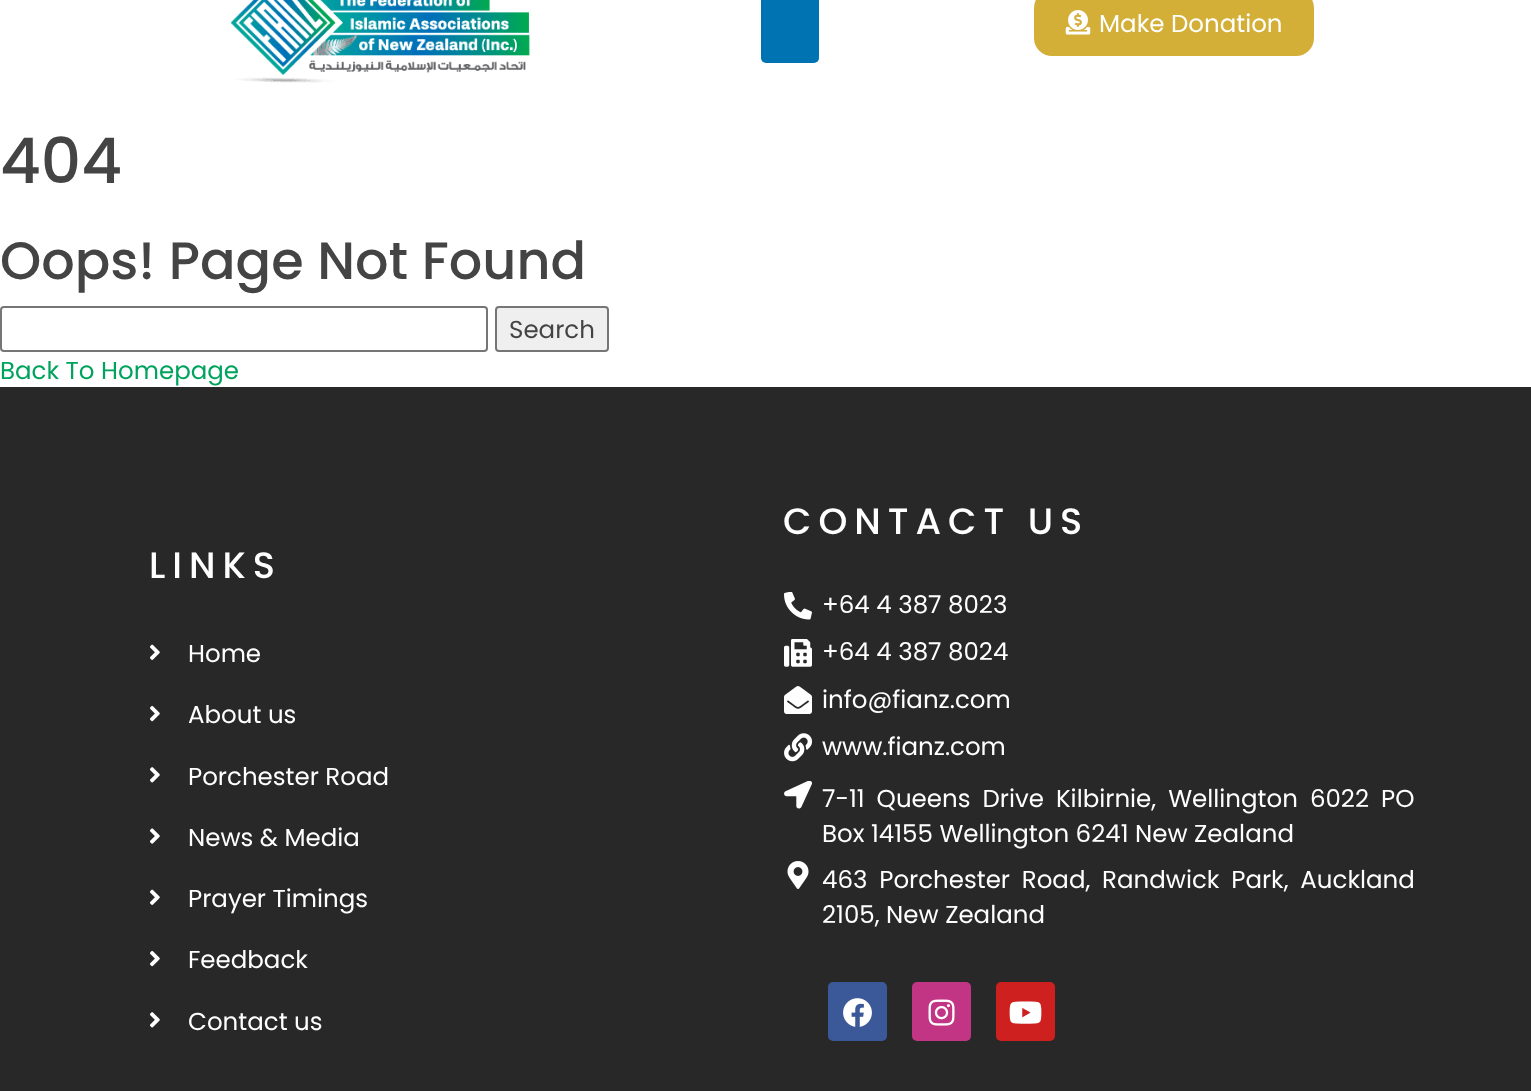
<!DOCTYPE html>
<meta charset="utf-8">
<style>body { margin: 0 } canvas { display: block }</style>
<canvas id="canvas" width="1531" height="1091"></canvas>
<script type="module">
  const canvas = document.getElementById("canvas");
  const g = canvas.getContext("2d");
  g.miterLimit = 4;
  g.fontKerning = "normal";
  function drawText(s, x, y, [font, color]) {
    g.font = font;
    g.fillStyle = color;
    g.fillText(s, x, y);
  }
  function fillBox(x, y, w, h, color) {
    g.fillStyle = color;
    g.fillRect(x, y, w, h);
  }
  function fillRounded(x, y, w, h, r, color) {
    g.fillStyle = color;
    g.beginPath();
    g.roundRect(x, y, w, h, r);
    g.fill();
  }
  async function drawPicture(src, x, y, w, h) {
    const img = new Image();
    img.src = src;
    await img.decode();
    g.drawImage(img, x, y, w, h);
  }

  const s1 = ["24.5px Poppins", "#FFFFFF"];
  const s2 = ["500 63px Poppins", "#444444"];
  const s3 = ["500 52.5px Poppins", "#444444"];
  const s4 = ["24.5px Poppins", "#444444"];
  const s5 = ["24.5px Poppins", "#00A35D"];
  const s6 = ["500 36.75px Poppins", "#FFFFFF"];

  fillBox(0, 0, 1531, 1091, "#FFFFFF");
  await drawPicture("pic1.png", 230, 0, 300, 83);
  fillRounded(761, -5, 58, 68, 5, "#0074B2");
  fillRounded(1034, -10, 280, 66, 18, "#D3AF37");
  await drawPicture("pic2.png", 1065, 10, 26, 25);
  drawText("Make Donation", 1099, 32, s1);
  drawText("404", 0, 183, s2);
  drawText("Oops! Page Not Found", 0, 279, s3);
  g.beginPath();
  g.roundRect(1, 307, 486, 44, 3);
  g.strokeStyle = "#767676";
  g.lineWidth = 2;
  g.stroke();
  g.fillStyle = "#EFEFEF";
  g.beginPath();
  g.roundRect(496, 307, 112, 44, 3);
  g.fill();
  g.stroke();
  drawText("Search", 509, 338, s4);
  drawText("Back To Homepage", 0, 379, s5);
  fillBox(0, 387, 1531, 704, "#282828");
  g.letterSpacing = "7px";
  drawText("LINKS", 149, 578, s6);
  await drawPicture("pic3.png", 150, 644, 10, 16);
  g.letterSpacing = "0px";
  drawText("Home", 188, 662, s1);
  await drawPicture("pic4.png", 150, 705, 10, 17);
  drawText("About us", 188, 723, s1);
  await drawPicture("pic5.png", 150, 767, 10, 16);
  drawText("Porchester Road", 188, 785, s1);
  await drawPicture("pic6.png", 150, 828, 10, 16);
  drawText("News & Media", 188, 846, s1);
  await drawPicture("pic3.png", 150, 889, 10, 16);
  drawText("Prayer Timings", 188, 907, s1);
  await drawPicture("pic4.png", 150, 950, 10, 17);
  drawText("Feedback", 188, 968, s1);
  await drawPicture("pic5.png", 150, 1012, 10, 16);
  drawText("Contact us", 188, 1030, s1);
  g.letterSpacing = "7px";
  drawText("CONTACT US", 783, 534, s6);
  await drawPicture("pic7.png", 784, 592, 28, 28);
  g.letterSpacing = "0px";
  drawText("+64 4 387 8023", 822, 613, s1);
  await drawPicture("pic8.png", 784, 639, 28, 28);
  drawText("+64 4 387 8024", 822, 660, s1);
  await drawPicture("pic9.png", 784, 686, 28, 28);
  drawText("info@fianz.com", 822, 708, s1);
  await drawPicture("pic10.png", 784, 733, 29, 29);
  drawText("www.fianz.com", 822, 755, s1);
  await drawPicture("pic11.png", 784, 781, 28, 28);
  g.wordSpacing = "5.5px";
  drawText("7-11 Queens Drive Kilbirnie, Wellington 6022 PO", 822, 807, s1);
  g.wordSpacing = "0px";
  drawText("Box 14155 Wellington 6241 New Zealand", 822, 842, s1);
  await drawPicture("pic12.png", 787, 861, 22, 28);
  g.wordSpacing = "5.25px";
  drawText("463 Porchester Road, Randwick Park, Auckland", 822, 888, s1);
  g.wordSpacing = "0px";
  drawText("2105, New Zealand", 822, 923, s1);
  fillRounded(828, 982, 59, 59, 5, "#3B5998");
  await drawPicture("pic13.png", 843, 998, 29, 29);
  fillRounded(912, 982, 59, 59, 5, "#C13584");
  await drawPicture("pic14.png", 928, 999, 27, 27);
  fillRounded(996, 982, 59, 59, 5, "#CD201F");
  await drawPicture("pic15.png", 1009, 1001, 33, 23);
</script>
